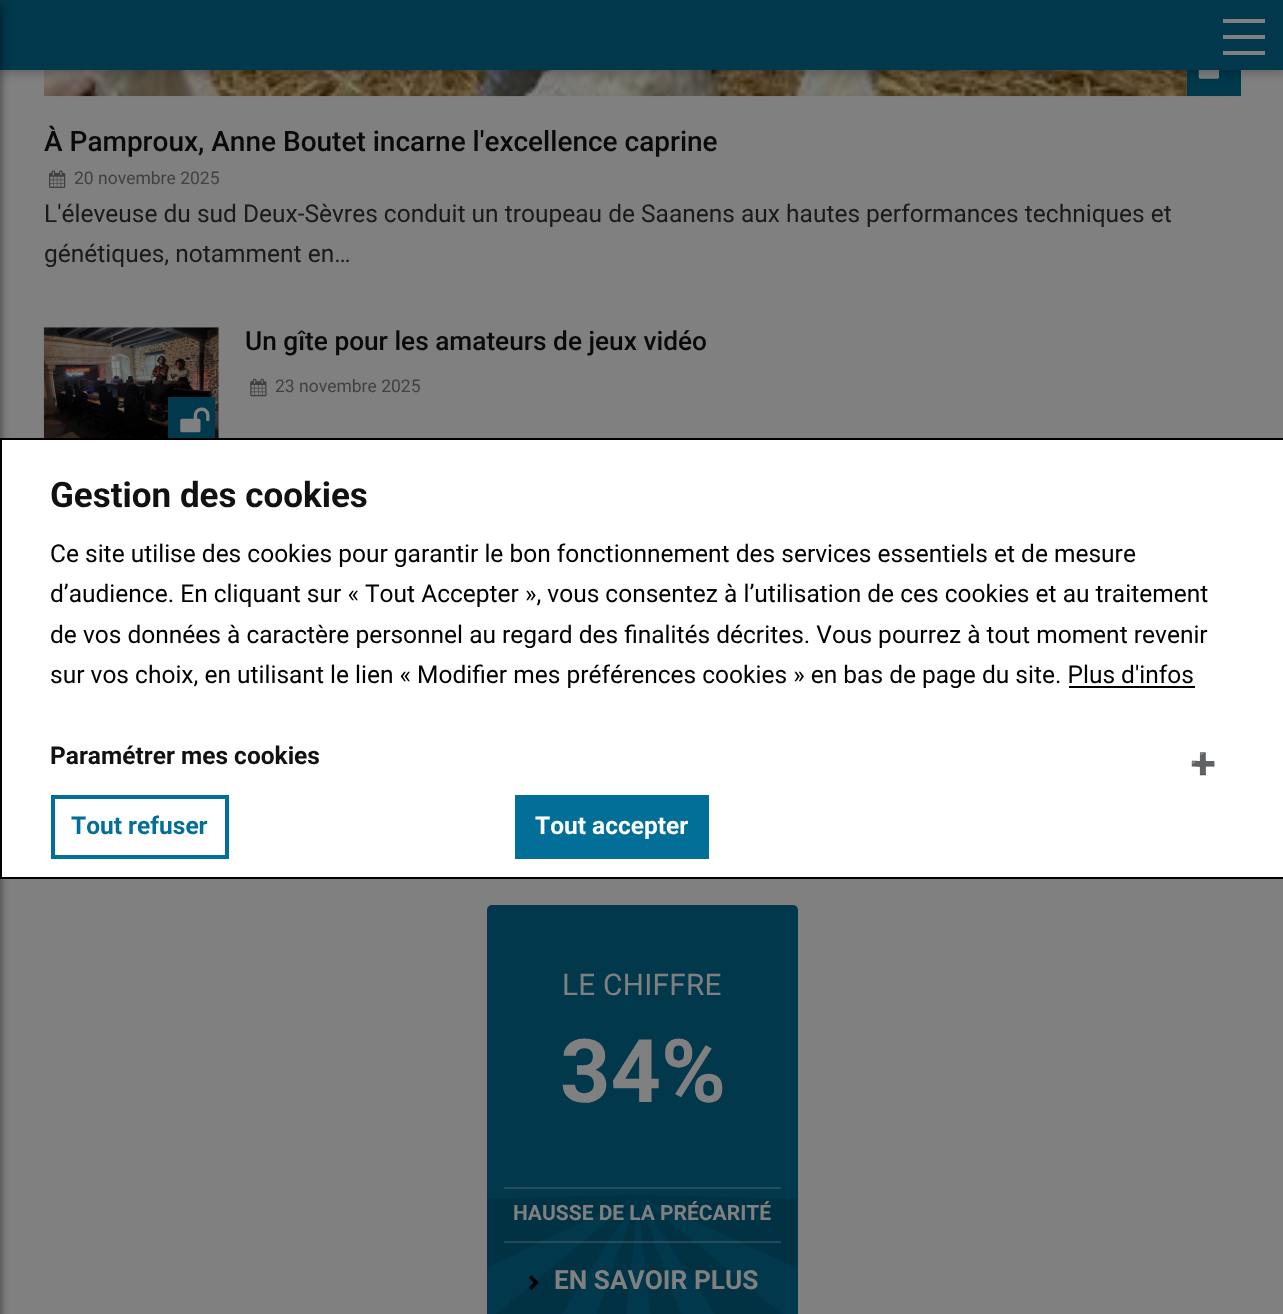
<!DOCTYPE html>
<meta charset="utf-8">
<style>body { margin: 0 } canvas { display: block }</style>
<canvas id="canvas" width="1283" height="1314"></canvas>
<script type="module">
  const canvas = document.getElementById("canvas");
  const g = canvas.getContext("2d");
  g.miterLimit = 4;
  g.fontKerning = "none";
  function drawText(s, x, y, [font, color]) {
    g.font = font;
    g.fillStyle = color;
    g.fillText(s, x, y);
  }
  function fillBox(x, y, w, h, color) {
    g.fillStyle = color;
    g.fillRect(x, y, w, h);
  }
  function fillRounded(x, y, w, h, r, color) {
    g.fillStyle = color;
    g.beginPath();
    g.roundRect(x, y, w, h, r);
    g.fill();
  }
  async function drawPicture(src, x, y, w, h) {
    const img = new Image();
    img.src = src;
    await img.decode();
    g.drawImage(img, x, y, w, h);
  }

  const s1 = ["500 28px Roboto", "#090909"];
  const s2 = ["17.5px Roboto", "#414141"];
  const s3 = ["24.5px Roboto", "#1A1A1A"];
  const s4 = ["500 26.25px Roboto", "#090909"];
  const s5 = ["29.75px Roboto", "#808080"];
  const s6 = ["bold 88px Roboto", "#808080"];
  const s7 = ["bold 21px Roboto", "#808080"];
  const s8 = ["bold 26.25px Roboto", "#808080"];
  const s9 = ["bold 35px Roboto", "#111111"];
  const s10 = ["24.5px Roboto", "#000000"];
  const s11 = ["bold 24.5px Roboto", "#111111"];
  const s12 = ["bold 21px Noto Color Emoji", "#111111"];
  const s13 = ["bold 24.5px Roboto", "#016F97"];
  const s14 = ["bold 24.5px Roboto", "#FFFFFF"];

  fillBox(0, 0, 1283, 1314, "#808080");
  await drawPicture("pic1.png", 43, 70, 1198, 27);
  fillBox(1187, 70, 54, 26, "#01384C");
  await drawPicture("pic2.png", 1198, 70, 21, 9);
  g.fillStyle = "rgba(0, 0, 0, 0.2)";
  g.filter = "blur(4.5px)";
  g.beginPath();
  g.rect(0, 4, 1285, 70);
  g.fill();
  g.filter = "none";
  fillBox(0, 0, 1283, 70, "#01384C");
  g.fillStyle = "rgba(0, 0, 0, 0.2)";
  g.filter = "blur(3.5px)";
  g.beginPath();
  g.rect(-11, 5, 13, 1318);
  g.fill();
  g.filter = "none";
  fillBox(1223, 19, 42, 4, "#808080");
  fillBox(1223, 35, 42, 4, "#808080");
  fillBox(1223, 51, 42, 4, "#808080");
  g.fillStyle = "rgba(0, 0, 0, 0.2)";
  g.filter = "blur(3.5px)";
  g.beginPath();
  g.rect(-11, 5, 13, 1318);
  g.fill();
  g.filter = "none";
  drawText("À Pamproux, Anne Boutet incarne l'excellence caprine", 44, 151, s1);
  await drawPicture("pic3.png", 49, 170, 17, 18);
  drawText("20 novembre 2025", 74, 184, s2);
  drawText("L'éleveuse du sud Deux-Sèvres conduit un troupeau de Saanens aux hautes performances techniques et", 44, 222, s3);
  drawText("génétiques, notamment en…", 44, 262, s3);
  await drawPicture("pic4.png", 43, 327, 176, 111);
  fillBox(168, 397, 47, 41, "#01384C");
  await drawPicture("pic5.png", 180, 407, 30, 26);
  drawText("Un gîte pour les amateurs de jeux vidéo", 245, 350, s4);
  await drawPicture("pic6.png", 250, 378, 17, 19);
  drawText("23 novembre 2025", 275, 392, s2);
  fillRounded(487, 905, 311, 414, 5, "#01384C");
  g.fillStyle = "#013244";
  g.beginPath();
  g.moveTo(730, 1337);
  g.lineTo(794, 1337);
  g.lineTo(797, 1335);
  g.lineTo(797, 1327);
  g.lineTo(640, 1197);
  g.lineTo(641, 1197);
  g.lineTo(797, 1268);
  g.lineTo(797, 1199);
  g.lineTo(635, 1195);
  g.lineTo(487, 1199);
  g.lineTo(487, 1267);
  g.lineTo(636, 1197);
  g.lineTo(487, 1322);
  g.lineTo(487, 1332);
  g.bezierCurveTo(487, 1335, 489, 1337, 492, 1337);
  g.lineTo(547, 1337);
  g.lineTo(637, 1198);
  g.lineTo(638, 1198);
  g.lineTo(588, 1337);
  g.lineTo(624, 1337);
  g.lineTo(638, 1201);
  g.lineTo(653, 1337);
  g.lineTo(689, 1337);
  g.lineTo(639, 1198);
  g.closePath();
  g.fill();
  g.letterSpacing = "0.25px";
  drawText("LE CHIFFRE", 562, 995, s5);
  g.letterSpacing = "0px";
  drawText("34%", 560, 1102, s6);
  fillBox(504, 1187, 277, 2, "#274D5B");
  fillBox(504, 1241, 277, 2, "rgba(128, 128, 128, 0.3)");
  drawText("HAUSSE DE LA PRÉCARITÉ", 513, 1220, s7);
  g.fillStyle = "#000000";
  g.beginPath();
  g.moveTo(529, 1277.5);
  g.lineTo(531.5, 1275);
  g.lineTo(538.5, 1282.5);
  g.lineTo(536, 1285);
  g.closePath();
  g.fill();
  g.beginPath();
  g.moveTo(529, 1287.5);
  g.lineTo(536, 1280);
  g.lineTo(538.5, 1282.5);
  g.lineTo(531.5, 1290);
  g.closePath();
  g.fill();
  drawText("EN SAVOIR PLUS", 554, 1289, s8);
  g.fillStyle = "#FFFFFF";
  g.beginPath();
  g.rect(1, 439, 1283, 439);
  g.fill();
  g.strokeStyle = "#000000";
  g.lineWidth = 2;
  g.stroke();
  drawText("Gestion des cookies", 50, 507, s9);
  drawText("Ce site utilise des cookies pour garantir le bon fonctionnement des services essentiels et de mesure", 50, 562, s10);
  drawText("d’audience. En cliquant sur « Tout Accepter », vous consentez à l’utilisation de ces cookies et au traitement", 50, 602, s10);
  drawText("de vos données à caractère personnel au regard des finalités décrites. Vous pourrez à tout moment revenir", 50, 643, s10);
  drawText("sur vos choix, en utilisant le lien « Modifier mes préférences cookies » en bas de page du site. Plus d'infos", 50, 683, s10);
  fillBox(1069, 686, 126, 2, "#000000");
  drawText("Paramétrer mes cookies", 50, 764, s11);
  drawText("➕", 1190, 771, s12);
  g.strokeStyle = "#016F97";
  g.lineWidth = 4;
  g.strokeRect(53, 797, 174, 60);
  drawText("Tout refuser", 71, 834, s13);
  fillBox(515, 795, 194, 64, "#016F97");
  drawText("Tout accepter", 535, 834, s14);
</script>
